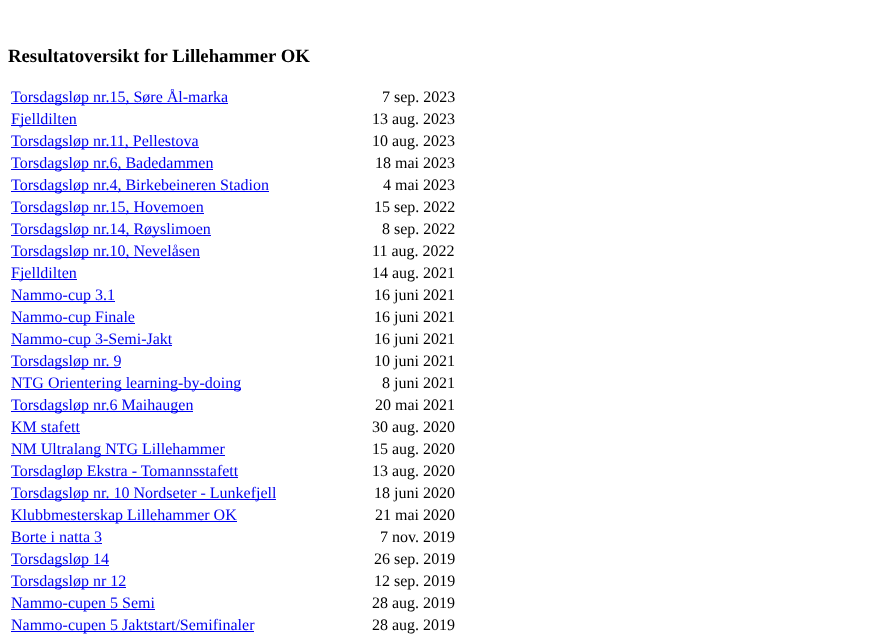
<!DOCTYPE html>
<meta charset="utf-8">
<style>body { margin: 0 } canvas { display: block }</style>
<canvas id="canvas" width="892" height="636"></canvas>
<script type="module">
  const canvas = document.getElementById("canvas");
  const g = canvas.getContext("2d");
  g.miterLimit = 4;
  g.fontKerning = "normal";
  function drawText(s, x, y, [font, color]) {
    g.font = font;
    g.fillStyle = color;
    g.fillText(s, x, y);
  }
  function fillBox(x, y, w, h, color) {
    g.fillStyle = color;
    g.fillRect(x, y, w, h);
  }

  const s1 = ["bold 18.75px Liberation Serif", "#000000"];
  const s2 = ["16px Liberation Serif", "#0000EE"];
  const s3 = ["16px Liberation Serif", "#000000"];

  fillBox(0, 0, 892, 636, "#FFFFFF");
  drawText("Resultatoversikt for Lillehammer OK", 8, 62, s1);
  fillBox(11, 103, 217, 1, "#0000EE");
  drawText("Torsdagsløp nr.15, Søre Ål-marka", 11, 102, s2);
  drawText("7 sep. 2023", 382, 102, s3);
  fillBox(11, 125, 66, 1, "#0000EE");
  drawText("Fjelldilten", 11, 124, s2);
  drawText("13 aug. 2023", 372, 124, s3);
  fillBox(11, 147, 188, 1, "#0000EE");
  drawText("Torsdagsløp nr.11, Pellestova", 11, 146, s2);
  drawText("10 aug. 2023", 372, 146, s3);
  fillBox(11, 169, 202, 1, "#0000EE");
  drawText("Torsdagsløp nr.6, Badedammen", 11, 168, s2);
  drawText("18 mai 2023", 375, 168, s3);
  fillBox(11, 191, 258, 1, "#0000EE");
  drawText("Torsdagsløp nr.4, Birkebeineren Stadion", 11, 190, s2);
  drawText("4 mai 2023", 383, 190, s3);
  fillBox(11, 213, 193, 1, "#0000EE");
  drawText("Torsdagsløp nr.15, Hovemoen", 11, 212, s2);
  drawText("15 sep. 2022", 374, 212, s3);
  fillBox(11, 235, 200, 1, "#0000EE");
  drawText("Torsdagsløp nr.14, Røyslimoen", 11, 234, s2);
  drawText("8 sep. 2022", 382, 234, s3);
  fillBox(11, 257, 189, 1, "#0000EE");
  drawText("Torsdagsløp nr.10, Nevelåsen", 11, 256, s2);
  drawText("11 aug. 2022", 372, 256, s3);
  fillBox(11, 279, 66, 1, "#0000EE");
  drawText("Fjelldilten", 11, 278, s2);
  drawText("14 aug. 2021", 372, 278, s3);
  fillBox(11, 301, 104, 1, "#0000EE");
  drawText("Nammo-cup 3.1", 11, 300, s2);
  drawText("16 juni 2021", 374, 300, s3);
  fillBox(11, 323, 124, 1, "#0000EE");
  drawText("Nammo-cup Finale", 11, 322, s2);
  drawText("16 juni 2021", 374, 322, s3);
  fillBox(11, 345, 161, 1, "#0000EE");
  drawText("Nammo-cup 3-Semi-Jakt", 11, 344, s2);
  drawText("16 juni 2021", 374, 344, s3);
  fillBox(11, 367, 110, 1, "#0000EE");
  drawText("Torsdagsløp nr. 9", 11, 366, s2);
  drawText("10 juni 2021", 374, 366, s3);
  fillBox(11, 389, 230, 1, "#0000EE");
  drawText("NTG Orientering learning-by-doing", 11, 388, s2);
  drawText("8 juni 2021", 382, 388, s3);
  fillBox(11, 411, 182, 1, "#0000EE");
  drawText("Torsdagsløp nr.6 Maihaugen", 11, 410, s2);
  drawText("20 mai 2021", 375, 410, s3);
  drawText("KM stafett", 11, 432, s2);
  fillBox(11, 433, 69, 1, "#0000EE");
  drawText("30 aug. 2020", 372, 432, s3);
  fillBox(11, 455, 214, 1, "#0000EE");
  drawText("NM Ultralang NTG Lillehammer", 11, 454, s2);
  drawText("15 aug. 2020", 372, 454, s3);
  fillBox(11, 477, 227, 1, "#0000EE");
  drawText("Torsdagløp Ekstra - Tomannsstafett", 11, 476, s2);
  drawText("13 aug. 2020", 372, 476, s3);
  fillBox(11, 499, 265, 1, "#0000EE");
  drawText("Torsdagsløp nr. 10 Nordseter - Lunkefjell", 11, 498, s2);
  drawText("18 juni 2020", 374, 498, s3);
  fillBox(11, 521, 226, 1, "#0000EE");
  drawText("Klubbmesterskap Lillehammer OK", 11, 520, s2);
  drawText("21 mai 2020", 375, 520, s3);
  drawText("Borte i natta 3", 11, 542, s2);
  fillBox(11, 543, 91, 1, "#0000EE");
  drawText("7 nov. 2019", 380, 542, s3);
  fillBox(11, 565, 98, 1, "#0000EE");
  drawText("Torsdagsløp 14", 11, 564, s2);
  drawText("26 sep. 2019", 374, 564, s3);
  fillBox(11, 587, 115, 1, "#0000EE");
  drawText("Torsdagsløp nr 12", 11, 586, s2);
  drawText("12 sep. 2019", 374, 586, s3);
  fillBox(11, 609, 144, 1, "#0000EE");
  drawText("Nammo-cupen 5 Semi", 11, 608, s2);
  drawText("28 aug. 2019", 372, 608, s3);
  fillBox(11, 631, 243, 1, "#0000EE");
  drawText("Nammo-cupen 5 Jaktstart/Semifinaler", 11, 630, s2);
  drawText("28 aug. 2019", 372, 630, s3);
</script>
